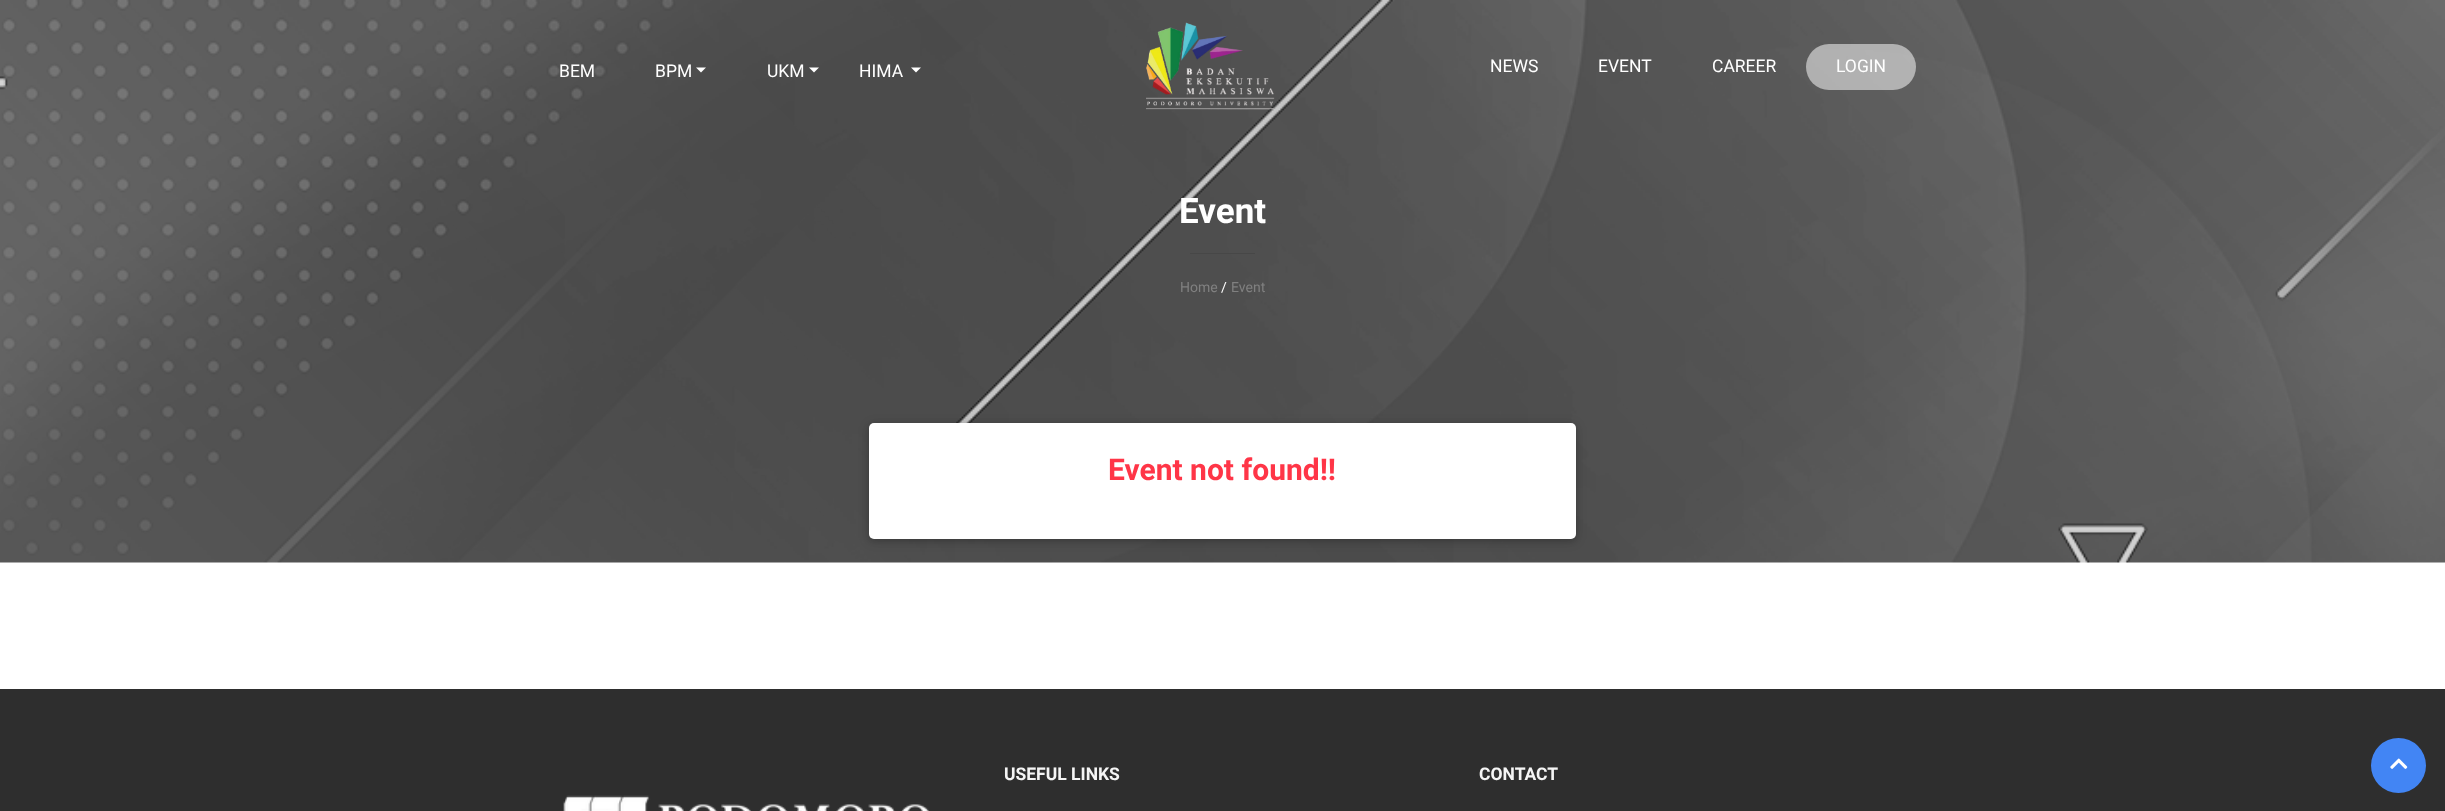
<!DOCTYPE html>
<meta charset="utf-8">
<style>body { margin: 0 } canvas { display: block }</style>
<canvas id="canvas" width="2445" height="811"></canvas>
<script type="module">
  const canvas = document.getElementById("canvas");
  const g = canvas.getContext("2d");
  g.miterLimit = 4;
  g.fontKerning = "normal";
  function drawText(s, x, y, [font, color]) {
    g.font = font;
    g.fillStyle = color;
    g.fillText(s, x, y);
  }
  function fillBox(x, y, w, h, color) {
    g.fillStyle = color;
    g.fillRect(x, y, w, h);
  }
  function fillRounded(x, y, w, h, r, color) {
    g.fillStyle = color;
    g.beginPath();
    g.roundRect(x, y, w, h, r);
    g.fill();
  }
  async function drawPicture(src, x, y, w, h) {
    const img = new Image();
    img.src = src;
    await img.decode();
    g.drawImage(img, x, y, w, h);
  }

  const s1 = ["17.5px Roboto", "#FFFFFF"];
  const s2 = ["bold 35px Roboto", "#FFFFFF"];
  const s3 = ["14px Roboto", "#808080"];
  const s4 = ["14px Roboto", "#FFFFFF"];
  const s5 = ["bold 30px Roboto", "#FF3547"];
  const s6 = ["bold 17.5px Roboto", "#F5F5F5"];

  fillBox(0, 0, 2445, 811, "#FFFFFF");
  await drawPicture("pic2.png", 0, 0, 2445, 563);
  drawText("BEM", 559, 77, s1);
  drawText("BPM", 655, 77, s1);
  g.beginPath();
  g.moveTo(696, 67.5);
  g.lineTo(706, 67.5);
  g.lineTo(701, 72.5);
  g.closePath();
  g.fill();
  drawText("UKM", 767, 77, s1);
  g.beginPath();
  g.moveTo(809, 67.5);
  g.lineTo(819, 67.5);
  g.lineTo(814, 72.5);
  g.closePath();
  g.fill();
  drawText("HIMA", 859, 77, s1);
  g.beginPath();
  g.moveTo(911, 67.5);
  g.lineTo(921, 67.5);
  g.lineTo(916, 72.5);
  g.closePath();
  g.fill();
  await drawPicture("pic1.png", 1146, 22, 129, 88);
  drawText("NEWS", 1490, 72, s1);
  drawText("EVENT", 1598, 72, s1);
  drawText("CAREER", 1712, 72, s1);
  fillRounded(1806, 44, 110, 46, 23, "rgba(255, 255, 255, 0.52)");
  drawText("LOGIN", 1836, 72, s1);
  drawText("Event", 1179, 223, s2);
  fillBox(1190, 253, 65, 1, "#474747");
  drawText("Home", 1180, 292, s3);
  drawText("/", 1221, 292, s4);
  drawText("Event", 1231, 292, s3);
  g.fillStyle = "rgba(0, 0, 0, 0.12)";
  g.filter = "blur(6px)";
  g.beginPath();
  g.roundRect(869, 425, 707, 116, 5);
  g.fill();
  g.filter = "none";
  g.fillStyle = "rgba(0, 0, 0, 0.16)";
  g.filter = "blur(3px)";
  g.beginPath();
  g.roundRect(869, 425, 707, 116, 5);
  g.fill();
  g.filter = "none";
  fillRounded(869, 423, 707, 116, 5, "#FFFFFF");
  drawText("Event not found!!", 1108, 480, s5);
  fillBox(0, 689, 2445, 122, "#2E2E2E");
  drawText("USEFUL LINKS", 1004, 780, s6);
  drawText("CONTACT", 1479, 780, s6);
  await drawPicture("pic3.png", 563, 795, 366, 16);
  g.fillStyle = "#4285F4";
  g.beginPath();
  g.arc(2398.5, 765.5, 27.5, 0, Math.PI * 2);
  g.fill();
  await drawPicture("pic4.png", 2390, 758, 18, 11);
</script>
